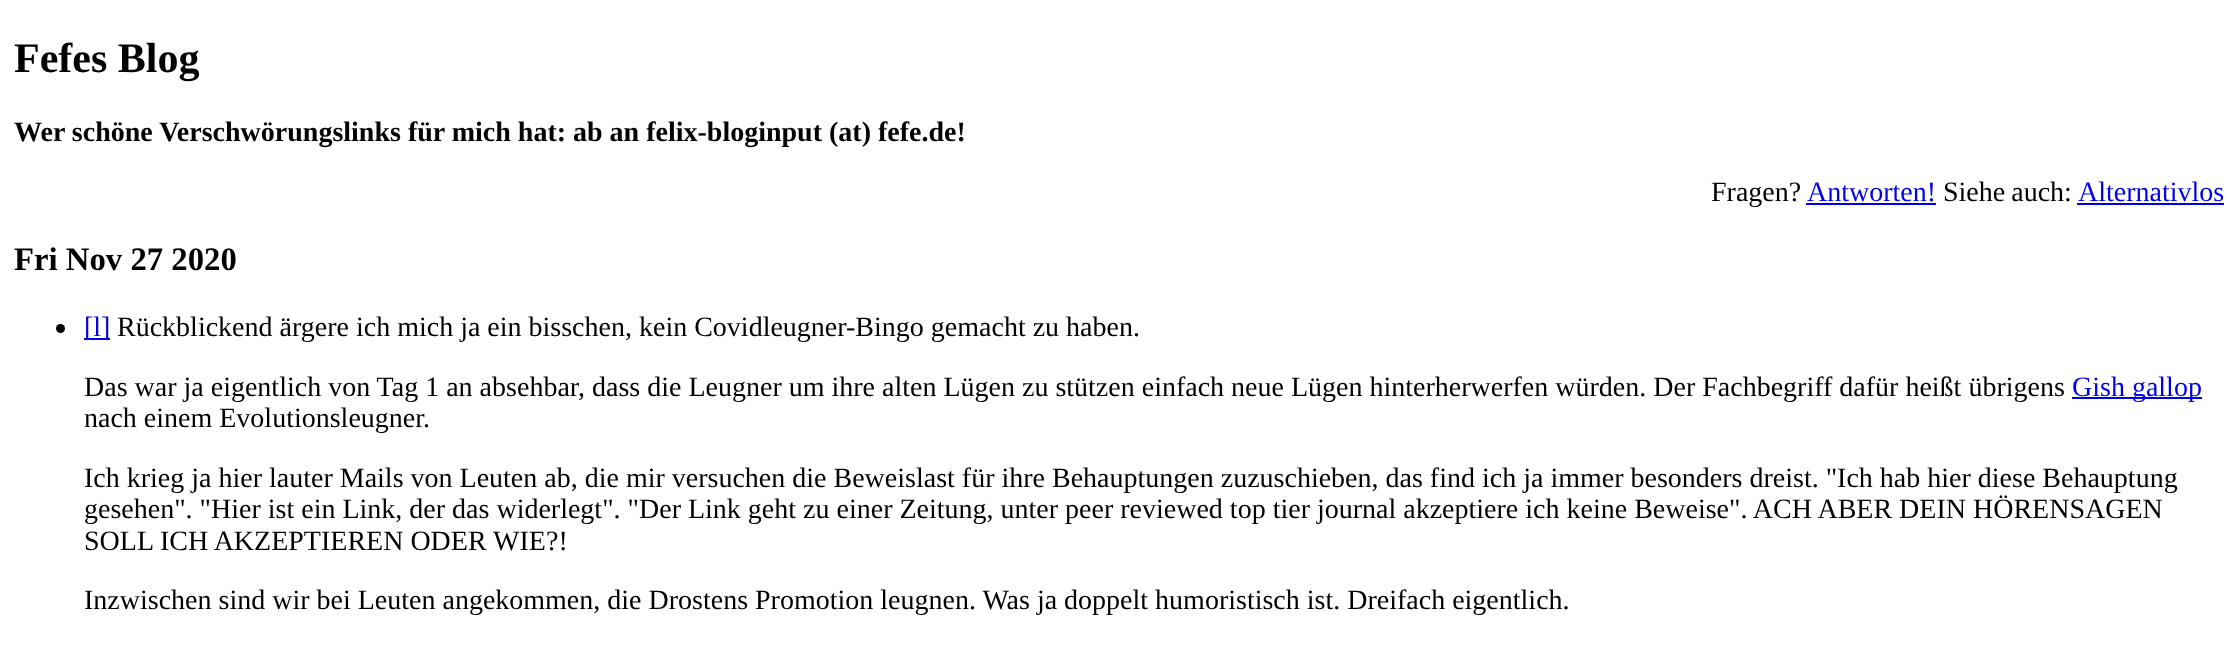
<!DOCTYPE html>
<meta charset="utf-8">
<style>body { margin: 0 } canvas { display: block }</style>
<canvas id="canvas" width="2238" height="660"></canvas>
<script type="module">
  const canvas = document.getElementById("canvas");
  const g = canvas.getContext("2d");
  g.miterLimit = 4;
  g.fontKerning = "normal";
  function drawText(s, x, y, [font, color]) {
    g.font = font;
    g.fillStyle = color;
    g.fillText(s, x, y);
  }
  function fillBox(x, y, w, h, color) {
    g.fillStyle = color;
    g.fillRect(x, y, w, h);
  }

  const s1 = ["bold 42px Liberation Serif", "#000000"];
  const s2 = ["bold 28px Liberation Serif", "#000000"];
  const s3 = ["28px Liberation Serif", "#000000"];
  const s4 = ["28px Liberation Serif", "#0000EE"];
  const s5 = ["bold 32.75px Liberation Serif", "#000000"];

  fillBox(0, 0, 2238, 660, "#FFFFFF");
  drawText("Fefes Blog", 14, 72, s1);
  drawText("Wer schöne Verschwörungslinks für mich hat: ab an felix-bloginput (at) fefe.de!", 14, 141, s2);
  drawText("Fragen?", 1711, 201, s3);
  drawText("Antworten!", 1807, 201, s4);
  fillBox(1806, 203, 130, 2, "#0000EE");
  g.wordSpacing = "-1px";
  drawText("Siehe auch:", 1943, 201, s3);
  g.wordSpacing = "0px";
  drawText("Alternativlos", 2078, 201, s4);
  fillBox(2077, 203, 147, 2, "#0000EE");
  drawText("Fri Nov 27 2020", 14, 270, s5);
  g.beginPath();
  g.arc(60.5, 328.5, 4.5, 0, Math.PI * 2);
  g.fill();
  fillBox(84, 338, 26, 2, "#0000EE");
  drawText("[l]", 84, 336, s4);
  drawText("Rückblickend ärgere ich mich ja ein bisschen, kein Covidleugner-Bingo gemacht zu haben.", 117, 336, s3);
  drawText("Das war ja eigentlich von Tag 1 an absehbar, dass die Leugner um ihre alten Lügen zu stützen einfach neue Lügen hinterherwerfen würden. Der Fachbegriff dafür heißt übrigens", 84, 396, s3);
  fillBox(2072, 397, 130, 2, "#0000EE");
  drawText("Gish gallop", 2072, 396, s4);
  drawText("nach einem Evolutionsleugner.", 84, 427, s3);
  drawText("Ich krieg ja hier lauter Mails von Leuten ab, die mir versuchen die Beweislast für ihre Behauptungen zuzuschieben, das find ich ja immer besonders dreist. \"Ich hab hier diese Behauptung", 84, 487, s3);
  drawText("gesehen\". \"Hier ist ein Link, der das widerlegt\". \"Der Link geht zu einer Zeitung, unter peer reviewed top tier journal akzeptiere ich keine Beweise\". ACH ABER DEIN HÖRENSAGEN", 84, 518, s3);
  drawText("SOLL ICH AKZEPTIEREN ODER WIE?!", 84, 550, s3);
  drawText("Inzwischen sind wir bei Leuten angekommen, die Drostens Promotion leugnen. Was ja doppelt humoristisch ist. Dreifach eigentlich.", 84, 609, s3);
</script>
